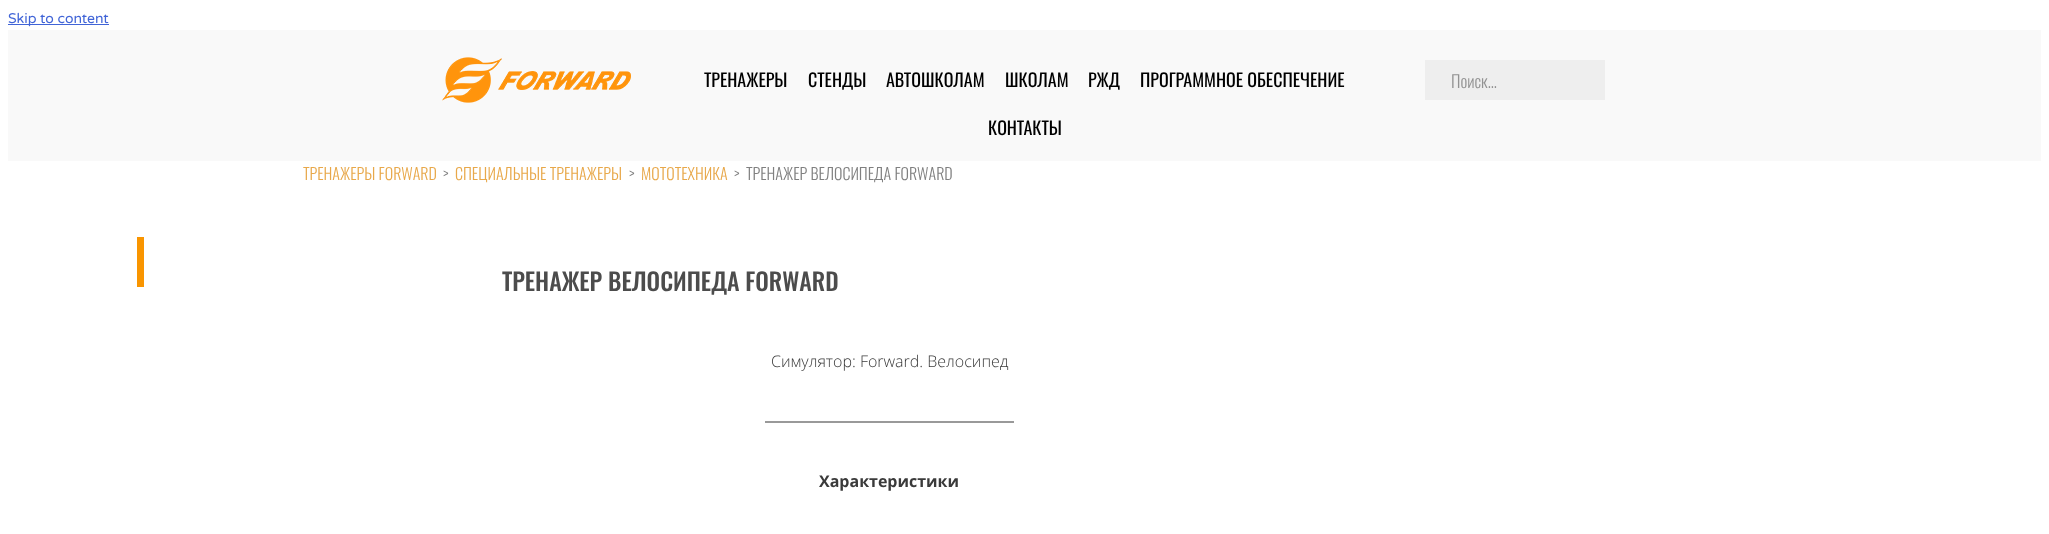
<!DOCTYPE html>
<meta charset="utf-8">
<style>body { margin: 0 } canvas { display: block }</style>
<canvas id="canvas" width="2049" height="534"></canvas>
<script type="module">
  const canvas = document.getElementById("canvas");
  const g = canvas.getContext("2d");
  g.miterLimit = 4;
  g.fontKerning = "normal";
  function drawText(s, x, y, [font, color]) {
    g.font = font;
    g.fillStyle = color;
    g.fillText(s, x, y);
  }
  function fillBox(x, y, w, h, color) {
    g.fillStyle = color;
    g.fillRect(x, y, w, h);
  }
  async function drawPicture(src, x, y, w, h) {
    const img = new Image();
    img.src = src;
    await img.decode();
    g.drawImage(img, x, y, w, h);
  }

  const s1 = ["14px Varela Round", "#4064D7"];
  const s2 = ["18px Oswald", "#000000"];
  const s3 = ["300 17px Oswald", "#929292"];
  const s4 = ["300 16px Oswald", "#E8A84A"];
  const s5 = ["300 16px Oswald", "#808080"];
  const s6 = ["500 24px Oswald", "#4C4C4C"];
  const s7 = ["300 16px Open Sans", "#3A3A3A"];
  const s8 = ["bold 16px Open Sans", "#3A3A3A"];

  fillBox(0, 0, 2049, 534, "#FFFFFF");
  fillBox(8, 24, 101, 1, "#4064D7");
  drawText("Skip to content", 8, 23, s1);
  fillBox(8, 30, 2033, 131, "#F9F9F9");
  await drawPicture("pic1.png", 442, 57, 189, 46);
  drawText("ТРЕНАЖЕРЫ", 704, 87, s2);
  drawText("СТЕНДЫ", 808, 87, s2);
  drawText("АВТОШКОЛАМ", 886, 87, s2);
  drawText("ШКОЛАМ", 1005, 87, s2);
  drawText("РЖД", 1088, 87, s2);
  drawText("ПРОГРАММНОЕ ОБЕСПЕЧЕНИЕ", 1140, 87, s2);
  drawText("КОНТАКТЫ", 988, 135, s2);
  fillBox(1425, 60, 180, 40, "#EEEEEE");
  drawText("Поиск...", 1451, 88, s3);
  drawText("ТРЕНАЖЕРЫ FORWARD", 303, 180, s4);
  drawText(">", 443, 180, s5);
  drawText("СПЕЦИАЛЬНЫЕ ТРЕНАЖЕРЫ", 455, 180, s4);
  drawText(">", 629, 180, s5);
  drawText("МОТОТЕХНИКА", 641, 180, s4);
  drawText(">", 734, 180, s5);
  drawText("ТРЕНАЖЕР ВЕЛОСИПЕДА FORWARD", 746, 180, s5);
  fillBox(137, 237, 7, 50, "#F99500");
  drawText("ТРЕНАЖЕР ВЕЛОСИПЕДА FORWARD", 502, 291, s6);
  drawText("Симулятор: Forward. Велосипед", 771, 367, s7);
  fillBox(765, 421, 249, 2, "#999999");
  drawText("Характеристики", 819, 487, s8);
</script>
